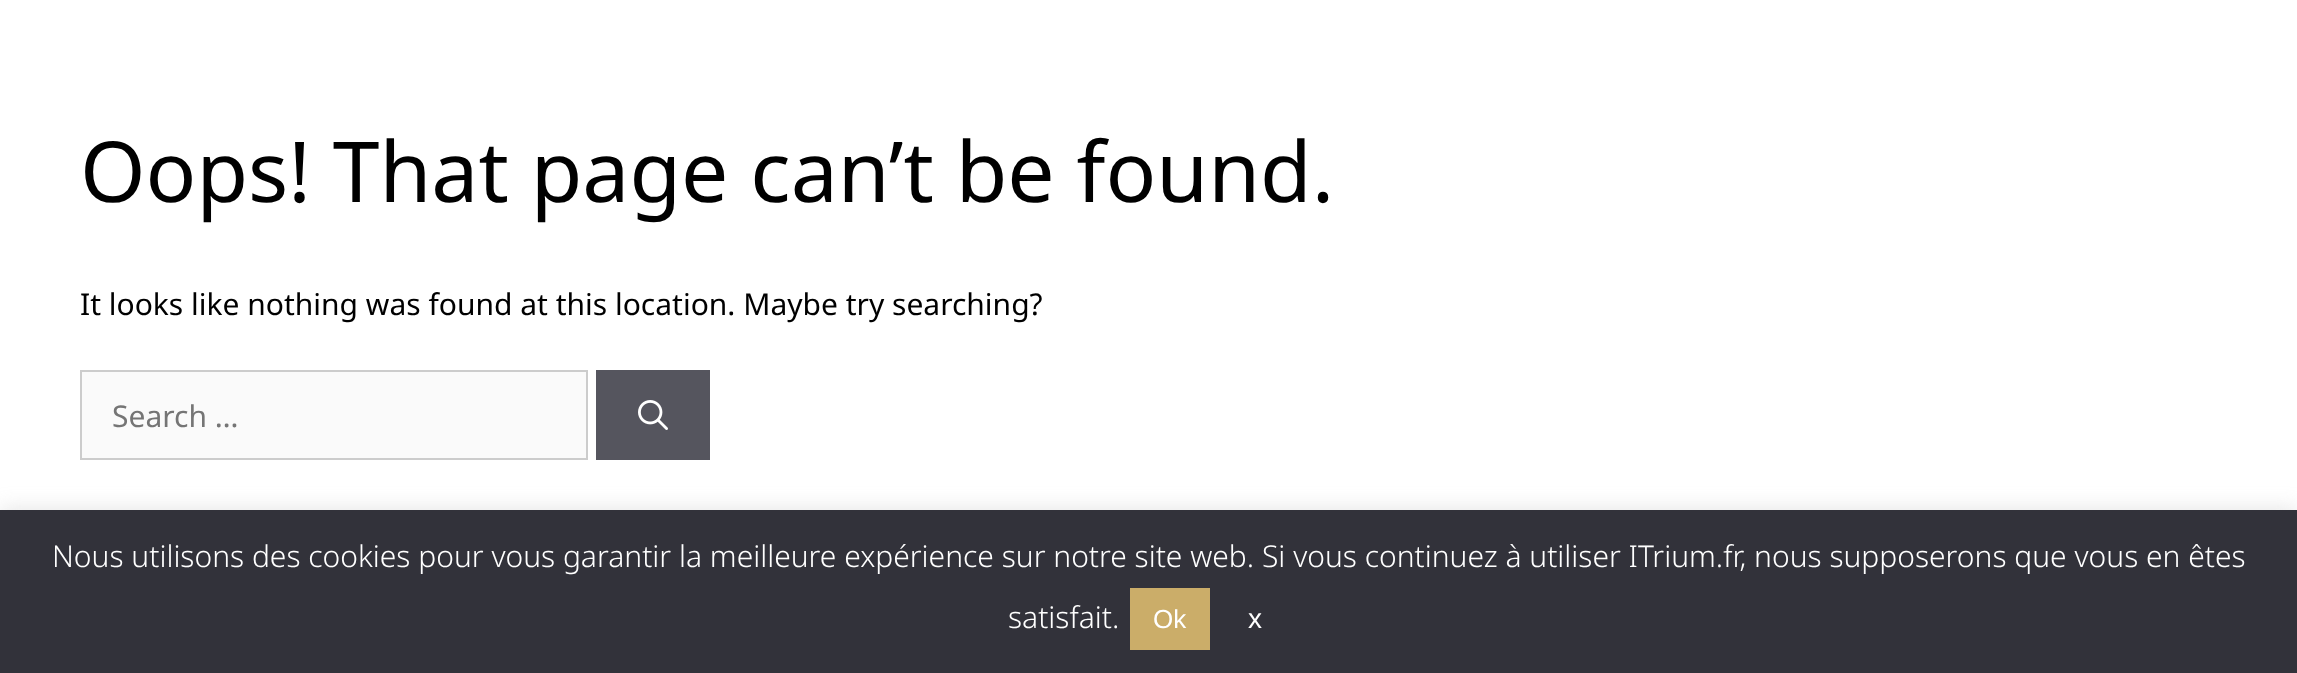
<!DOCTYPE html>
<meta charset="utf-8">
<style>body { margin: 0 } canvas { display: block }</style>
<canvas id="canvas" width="2297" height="673"></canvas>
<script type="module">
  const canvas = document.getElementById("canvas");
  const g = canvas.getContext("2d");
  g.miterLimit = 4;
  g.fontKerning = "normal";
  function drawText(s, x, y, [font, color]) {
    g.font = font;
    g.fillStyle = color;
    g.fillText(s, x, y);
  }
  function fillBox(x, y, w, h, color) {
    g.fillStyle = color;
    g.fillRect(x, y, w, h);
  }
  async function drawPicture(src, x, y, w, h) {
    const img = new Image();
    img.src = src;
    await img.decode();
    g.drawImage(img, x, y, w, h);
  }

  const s1 = ["84px Noto Sans", "#000000"];
  const s2 = ["30px Noto Sans", "#000000"];
  const s3 = ["30px Noto Sans", "#757575"];
  const s4 = ["300 30px Noto Sans", "#FFFFFF"];
  const s5 = ["26px Liberation Sans", "#FFFFFF"];
  const s6 = ["28px Liberation Sans", "#FFFFFF"];

  fillBox(0, 0, 2297, 673, "#FFFFFF");
  drawText("Oops! That page can’t be found.", 80, 202, s1);
  drawText("It looks like nothing was found at this location. Maybe try searching?", 80, 315, s2);
  g.fillStyle = "#FAFAFA";
  g.beginPath();
  g.rect(81, 371, 506, 88);
  g.fill();
  g.strokeStyle = "#CCCCCC";
  g.lineWidth = 2;
  g.stroke();
  drawText("Search …", 112, 427, s3);
  fillBox(596, 370, 114, 90, "#55555E");
  await drawPicture("pic1.png", 638, 400, 30, 30);
  g.fillStyle = "rgba(172, 171, 171, 0.3)";
  g.filter = "blur(10px)";
  g.beginPath();
  g.rect(0, 508, 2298, 164);
  g.fill();
  g.filter = "none";
  fillBox(0, 510, 2297, 163, "#32323A");
  drawText("Nous utilisons des cookies pour vous garantir la meilleure expérience sur notre site web. Si vous continuez à utiliser ITrium.fr, nous supposerons que vous en êtes", 52, 567, s4);
  drawText("satisfait.", 1008, 628, s4);
  fillBox(1130, 588, 80, 62, "#CBAD69");
  drawText("Ok", 1153, 628, s5);
  drawText("x", 1248, 628, s6);
</script>
